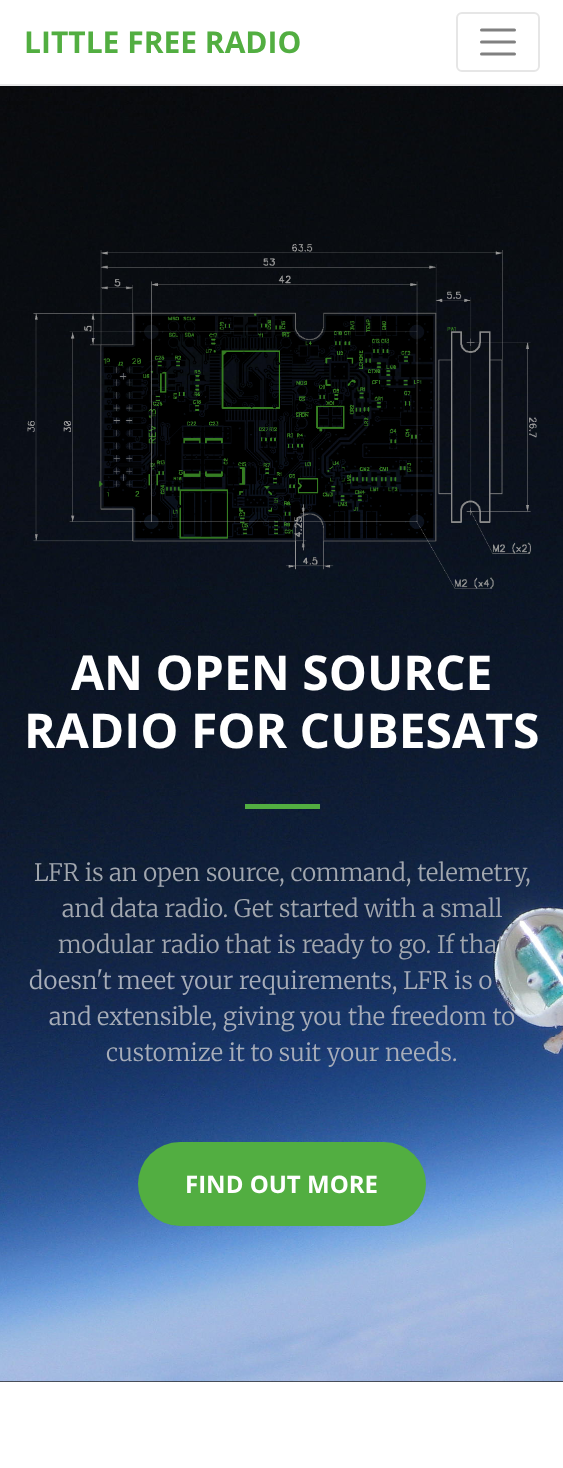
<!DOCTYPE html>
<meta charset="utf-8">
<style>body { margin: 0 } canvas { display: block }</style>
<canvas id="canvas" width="563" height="1468"></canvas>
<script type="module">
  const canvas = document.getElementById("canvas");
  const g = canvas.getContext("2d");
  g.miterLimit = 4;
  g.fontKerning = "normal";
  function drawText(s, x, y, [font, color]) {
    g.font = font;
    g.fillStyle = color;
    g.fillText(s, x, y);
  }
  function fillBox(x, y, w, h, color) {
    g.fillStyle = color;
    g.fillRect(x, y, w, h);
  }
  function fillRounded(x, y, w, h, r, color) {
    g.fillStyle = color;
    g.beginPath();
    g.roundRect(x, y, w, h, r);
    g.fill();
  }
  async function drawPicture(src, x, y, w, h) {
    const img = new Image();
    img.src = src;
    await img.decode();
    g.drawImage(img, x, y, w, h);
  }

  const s1 = ["bold 30px Open Sans", "#52AE41"];
  const s2 = ["bold 48px Open Sans", "#FFFFFF"];
  const s3 = ["300 24px Merriweather", "#A2A7AF"];
  const s4 = ["300 24px Merriweather", "#A7ADB9"];
  const s5 = ["bold 24px Open Sans", "#FFFFFF"];

  fillBox(0, 0, 563, 1468, "#FFFFFF");
  fillBox(0, 84, 563, 2, "#E9E9EA");
  drawText("LITTLE FREE RADIO", 24, 53, s1);
  g.beginPath();
  g.roundRect(457, 13, 82, 58, 5);
  g.strokeStyle = "#E6E6E6";
  g.lineWidth = 2;
  g.stroke();
  g.beginPath();
  g.moveTo(481.5, 30);
  g.lineTo(514.5, 30);
  g.moveTo(481.5, 42);
  g.lineTo(514.5, 42);
  g.moveTo(481.5, 54);
  g.lineTo(514.5, 54);
  g.strokeStyle = "#808080";
  g.lineWidth = 3;
  g.lineCap = "round";
  g.stroke();
  fillBox(0, 1381, 563, 1, "#333333");
  await drawPicture("pic1.png", 0, 86, 563, 1296);
  await drawPicture("pic2.png", 27, 244, 510, 345);
  drawText("AN OPEN SOURCE", 71, 690, s2);
  drawText("RADIO FOR CUBESATS", 24, 748, s2);
  fillBox(245, 804, 75, 5, "#52AE41");
  drawText("LFR is an open source, command, telemetry,", 34, 881, s3);
  drawText("and data radio. Get", 62, 917, s3);
  drawText("started with a small", 279, 917, s3);
  drawText("modular radio that is ready to go. If that", 58, 953, s3);
  drawText("doesn't meet your requirements, LFR is o", 29, 989, s4);
  drawText("and extensible, giving", 49, 1025, s4);
  drawText("you the freedom to", 300, 1025, s4);
  drawText("customize it to suit your needs.", 106, 1061, s4);
  fillRounded(138, 1142, 288, 84, 42, "#52AE41");
  drawText("FIND OUT MORE", 185, 1193, s5);
</script>
